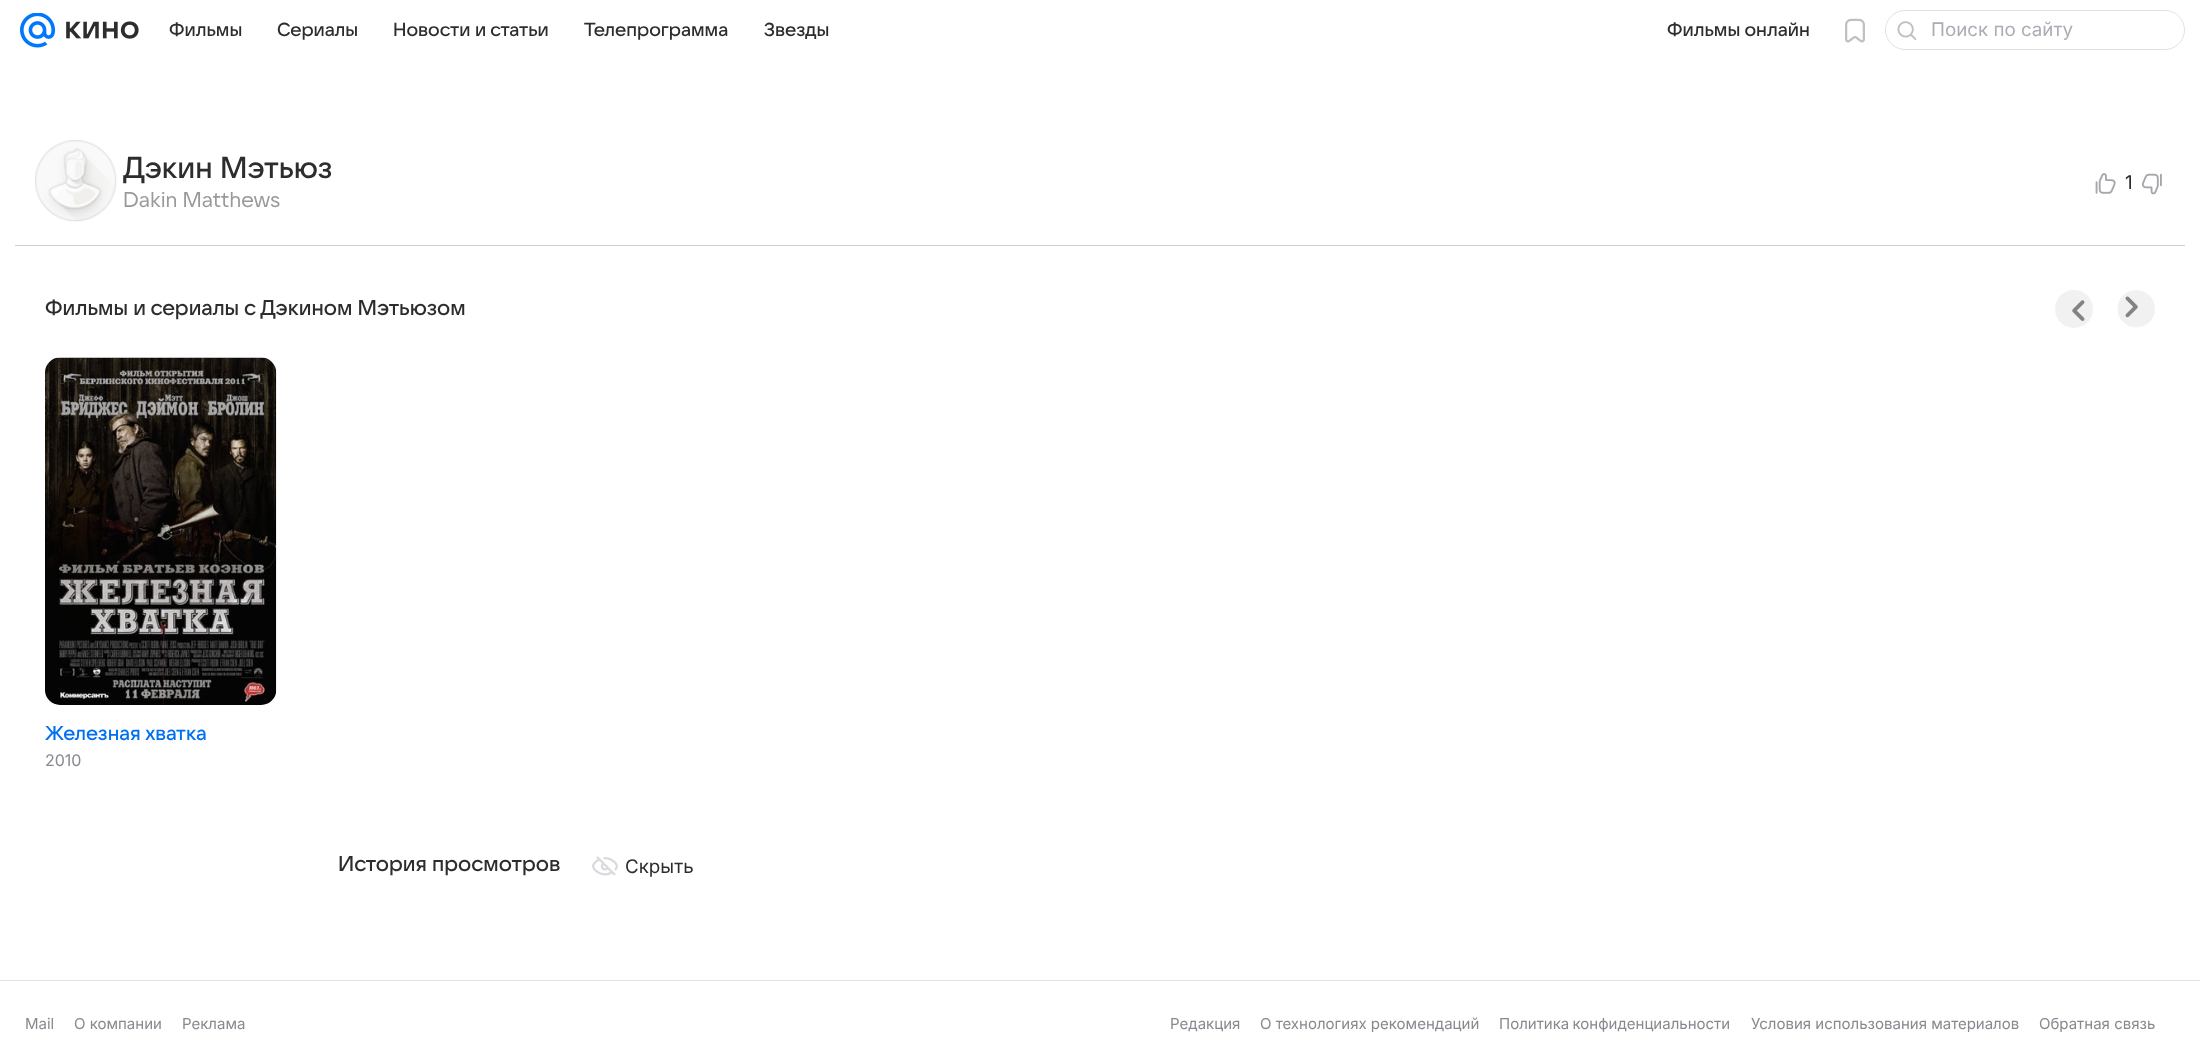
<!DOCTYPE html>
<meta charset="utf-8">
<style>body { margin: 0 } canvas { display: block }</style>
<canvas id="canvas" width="2200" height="1042"></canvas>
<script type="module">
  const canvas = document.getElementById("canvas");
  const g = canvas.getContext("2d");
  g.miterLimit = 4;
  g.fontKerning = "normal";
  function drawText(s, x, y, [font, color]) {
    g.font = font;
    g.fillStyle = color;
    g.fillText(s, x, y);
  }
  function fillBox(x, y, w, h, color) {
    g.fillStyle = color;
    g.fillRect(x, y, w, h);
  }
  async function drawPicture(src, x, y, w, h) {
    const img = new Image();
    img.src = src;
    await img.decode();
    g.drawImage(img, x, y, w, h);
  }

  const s1 = ["500 18.75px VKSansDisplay", "#2C2D2E"];
  const s2 = ["18.75px Inter", "#AAADB3"];
  const s3 = ["500 30px VKSansDisplay", "#2C2D2E"];
  const s4 = ["21.25px VKSansDisplay", "#999999"];
  const s5 = ["18.75px Inter", "#2C2D2E"];
  const s6 = ["500 21.25px VKSansDisplay", "#2C2D2E"];
  const s7 = ["500 20px VKSansDisplay", "#0070F0"];
  const s8 = ["16px Inter", "#87898F"];
  const s9 = ["15px Inter", "#87898F"];

  fillBox(0, 0, 2200, 1042, "#FFFFFF");
  await drawPicture("pic1.png", 20, 13, 35, 35);
  await drawPicture("pic2.png", 66, 21, 73, 18);
  drawText("Фильмы", 169, 36, s1);
  drawText("Сериалы", 277, 36, s1);
  drawText("Новости и статьи", 393, 36, s1);
  drawText("Телепрограмма", 584, 36, s1);
  drawText("Звезды", 764, 36, s1);
  drawText("Фильмы онлайн", 1667, 36, s1);
  await drawPicture("pic3.png", 1845, 18, 20, 25);
  g.beginPath();
  g.roundRect(1885.5, 10.5, 299, 39, 19.5);
  g.strokeStyle = "#E0E2E8";
  g.stroke();
  await drawPicture("pic4.png", 1897, 21, 20, 19);
  drawText("Поиск по сайту", 1931, 36, s2);
  fillBox(15, 245, 2170, 1, "#D1D1D1");
  await drawPicture("pic5.png", 35, 140, 82, 82);
  drawText("Дэкин Мэтьюз", 123, 178, s3);
  drawText("Dakin Matthews", 123, 207, s4);
  await drawPicture("pic6.png", 2095, 173, 21, 21);
  drawText("1", 2125, 189, s5);
  await drawPicture("pic7.png", 2141, 173, 21, 22);
  drawText("Фильмы и сериалы с Дэкином Мэтьюзом", 45, 315, s6);
  g.fillStyle = "#F1F1F1";
  g.beginPath();
  g.arc(2074, 309, 19, 0, Math.PI * 2);
  g.fill();
  await drawPicture("pic8.png", 2072, 300, 13, 21);
  g.beginPath();
  g.moveTo(2136, 327.5);
  g.bezierCurveTo(2126, 327.5, 2117.5, 319, 2117.5, 309);
  g.bezierCurveTo(2117.5, 298.5, 2126, 290, 2136, 290);
  g.bezierCurveTo(2146.5, 290, 2155, 298.5, 2155, 309);
  g.bezierCurveTo(2155, 319, 2146.5, 327.5, 2136, 327.5);
  g.closePath();
  g.fill();
  await drawPicture("pic9.png", 2125, 296, 13, 22);
  await drawPicture("pic10.png", 45, 357, 232, 348);
  drawText("Железная хватка", 45, 740, s7);
  drawText("2010", 45, 766, s8);
  drawText("История просмотров", 338, 871, s6);
  await drawPicture("pic11.png", 592, 856, 26, 20);
  drawText("Скрыть", 625, 873, s5);
  fillBox(0, 980, 2200, 1, "#E0E2E8");
  drawText("Mail", 25, 1029, s9);
  drawText("О компании", 74, 1029, s9);
  drawText("Реклама", 182, 1029, s9);
  drawText("Редакция", 1170, 1029, s9);
  drawText("О технологиях рекомендаций", 1260, 1029, s9);
  g.wordSpacing = "-1px";
  drawText("Политика конфиденциальности", 1499, 1029, s9);
  g.wordSpacing = "0px";
  drawText("Условия использования материалов", 1751, 1029, s9);
  drawText("Обратная связь", 2039, 1029, s9);
</script>
